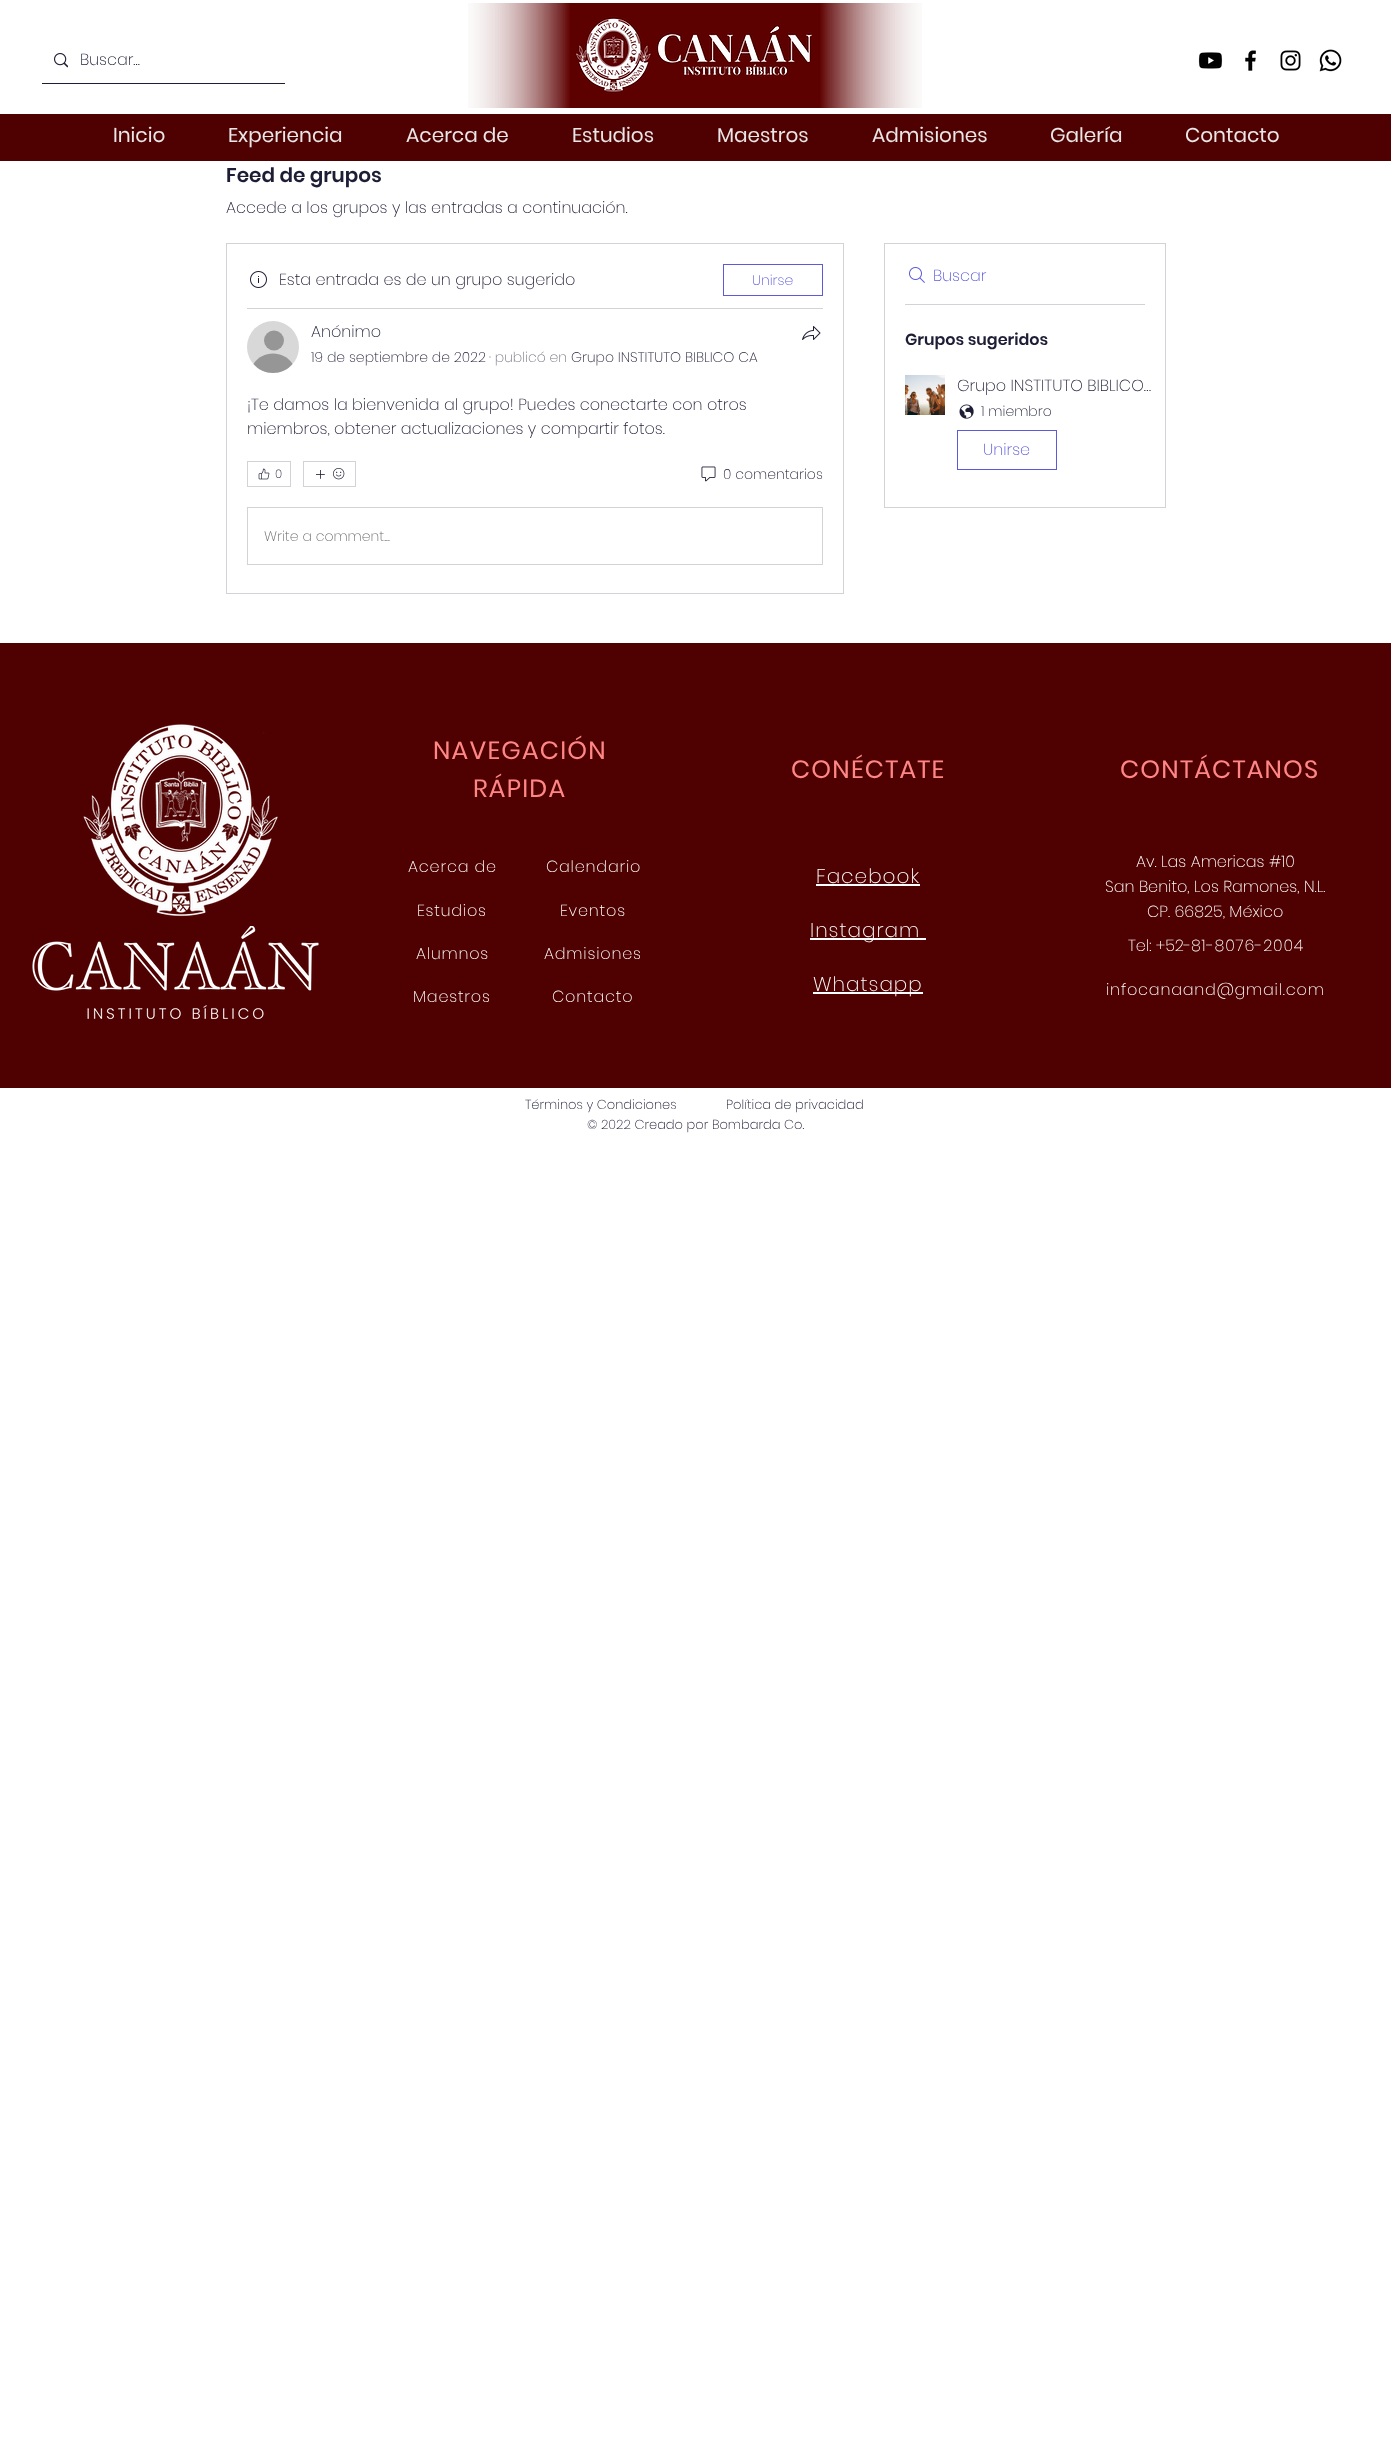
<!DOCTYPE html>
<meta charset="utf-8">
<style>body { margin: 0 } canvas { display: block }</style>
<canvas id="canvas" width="1391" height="2445"></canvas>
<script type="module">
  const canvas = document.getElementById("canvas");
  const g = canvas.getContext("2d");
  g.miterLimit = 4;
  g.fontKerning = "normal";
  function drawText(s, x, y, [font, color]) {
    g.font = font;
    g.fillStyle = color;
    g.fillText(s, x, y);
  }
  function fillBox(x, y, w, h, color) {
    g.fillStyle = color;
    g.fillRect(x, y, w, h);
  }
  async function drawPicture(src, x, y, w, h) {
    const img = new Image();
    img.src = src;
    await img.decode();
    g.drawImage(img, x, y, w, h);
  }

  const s1 = ["200 16px Poppins", "#1D1D36"];
  const s2 = ["20px Poppins", "#E8E6E6"];
  const s3 = ["600 20px Poppins", "#1D1D36"];
  const s4 = ["200 14px Poppins", "#5C5ADB"];
  const s5 = ["200 14px Poppins", "#1D1D36"];
  const s6 = ["200 14px Poppins", "#777786"];
  const s7 = ["200 12px Poppins", "#1D1D36"];
  const s8 = ["200 14px Poppins", "#6E6E6D"];
  const s9 = ["200 16px Poppins", "#5C5ADB"];
  const s10 = ["600 16px Poppins", "#1D1D36"];
  const s11 = ["25px Poppins", "#FF8686"];
  const s12 = ["200 16px Poppins", "#FFFFFF"];
  const s13 = ["200 20px Poppins", "#FFFFFF"];
  const s14 = ["200 13px Poppins", "#1D1D36"];

  fillBox(0, 0, 1391, 2445, "#FFFFFF");
  fillBox(42, 83, 243, 1, "#1D1D36");
  await drawPicture("pic1.png", 54, 53, 14, 15);
  drawText("Buscar...", 80, 65, s1);
  await drawPicture("pic2.png", 468, 3, 454, 105);
  await drawPicture("pic3.png", 1198, 52, 25, 17);
  await drawPicture("pic4.png", 1245, 50, 11, 21);
  await drawPicture("pic5.png", 1280, 50, 21, 21);
  await drawPicture("pic6.png", 1319, 49, 23, 23);
  fillBox(0, 114, 1391, 47, "#4F0000");
  drawText("Inicio", 113, 142, s2);
  drawText("Experiencia", 228, 142, s2);
  drawText("Acerca de", 406, 142, s2);
  drawText("Estudios", 572, 142, s2);
  drawText("Maestros", 717, 142, s2);
  drawText("Admisiones", 872, 142, s2);
  drawText("Galería", 1050, 142, s2);
  drawText("Contacto", 1185, 142, s2);
  drawText("Feed de grupos", 226, 182, s3);
  drawText("Accede a los grupos y las entradas a continuación.", 226, 213, s1);
  g.strokeStyle = "#D2D2D7";
  g.strokeRect(226.5, 243.5, 617, 350);
  await drawPicture("pic7.png", 250, 271, 17, 17);
  drawText("Esta entrada es de un grupo sugerido", 279, 285, s1);
  g.strokeStyle = "#5C5ADB";
  g.strokeRect(723.5, 264.5, 99, 31);
  drawText("Unirse", 752, 285, s4);
  fillBox(247, 308, 576, 1, "#D2D2D7");
  g.fillStyle = "#D8D8D8";
  g.beginPath();
  g.arc(273, 347, 26, 0, Math.PI * 2);
  g.fill();
  g.fillStyle = "#969696";
  g.beginPath();
  g.arc(274, 340.5, 10, 0, Math.PI * 2);
  g.fill();
  g.beginPath();
  g.moveTo(292.5, 364);
  g.bezierCurveTo(282.5, 376, 263.5, 376, 253.5, 364);
  g.bezierCurveTo(262, 350, 284, 350, 292.5, 364);
  g.closePath();
  g.fill();
  drawText("Anónimo", 311, 337, s1);
  drawText("19 de septiembre de 2022", 311, 362, s5);
  drawText("· publicó en", 489, 362, s6);
  drawText("Grupo INSTITUTO BIBLICO CA", 571, 362, s5);
  await drawPicture("pic8.png", 802, 326, 19, 14);
  drawText("¡Te damos la bienvenida al grupo! Puedes conectarte con otros", 247, 410, s1);
  drawText("miembros, obtener actualizaciones y compartir fotos.", 247, 434, s1);
  g.strokeStyle = "#D2D2D7";
  g.strokeRect(247.5, 461.5, 43, 25);
  await drawPicture("pic9.png", 258, 468, 12, 12);
  drawText("0", 275, 478, s7);
  g.strokeRect(303.5, 461.5, 52, 25);
  await drawPicture("pic10.png", 316, 470, 9, 9);
  await drawPicture("pic11.png", 333, 468, 12, 12);
  await drawPicture("pic12.png", 701, 466, 15, 16);
  drawText("0 comentarios", 723, 479, s5);
  g.strokeRect(247.5, 507.5, 575, 57);
  drawText("Write a comment...", 264, 541, s8);
  g.strokeRect(884.5, 243.5, 281, 264);
  await drawPicture("pic13.png", 909, 267, 16, 16);
  drawText("Buscar", 933, 281, s9);
  fillBox(905, 304, 240, 1, "#D2D2D7");
  drawText("Grupos sugeridos", 905, 345, s10);
  await drawPicture("pic14.png", 905, 375, 40, 40);
  drawText("Grupo INSTITUTO BIBLICO…", 957, 391, s1);
  await drawPicture("pic15.png", 959, 404, 15, 15);
  drawText("1 miembro", 981, 416, s5);
  g.strokeStyle = "#5C5ADB";
  g.strokeRect(957.5, 430.5, 99, 39);
  drawText("Unirse", 983, 455, s9);
  fillBox(0, 643, 1391, 445, "#4F0000");
  await drawPicture("pic16.png", 82, 724, 196, 193);
  await drawPicture("pic17.png", 32, 926, 287, 94);
  g.letterSpacing = "1.25px";
  drawText("NAVEGACIÓN", 433, 759, s11);
  drawText("RÁPIDA", 473, 797, s11);
  g.letterSpacing = "0.8px";
  drawText("Acerca de", 408, 872, s12);
  drawText("Estudios", 417, 916, s12);
  drawText("Alumnos", 416, 959, s12);
  drawText("Maestros", 413, 1002, s12);
  drawText("Calendario", 546, 872, s12);
  drawText("Eventos", 560, 916, s12);
  drawText("Admisiones", 544, 959, s12);
  drawText("Contacto", 552, 1002, s12);
  g.letterSpacing = "1.25px";
  drawText("CONÉCTATE", 791, 778, s11);
  g.letterSpacing = "1px";
  drawText("Facebook", 816, 883, s13);
  fillBox(816, 884, 104, 2, "#FFFFFF");
  fillBox(810, 938, 116, 2, "#FFFFFF");
  drawText("Instagram", 810, 937, s13);
  fillBox(813, 992, 110, 2, "#FFFFFF");
  drawText("Whatsapp", 813, 991, s13);
  g.letterSpacing = "1.25px";
  drawText("CONTÁCTANOS", 1120, 778, s11);
  g.letterSpacing = "0px";
  drawText("Av. Las Americas #10", 1136, 867, s12);
  drawText("San Benito, Los Ramones, N.L.", 1105, 892, s12);
  drawText("CP. 66825, México", 1147, 917, s12);
  drawText("Tel: +52-", 1128, 951, s12);
  g.letterSpacing = "0.8px";
  drawText("81-8076-2004", 1191, 951, s12);
  drawText("infocanaand@gmail.com", 1106, 995, s12);
  g.letterSpacing = "0px";
  drawText("Términos y Condiciones", 525, 1109, s14);
  drawText("Política de privacidad", 726, 1109, s14);
  drawText("© 2022 Creado por Bombarda Co.", 587, 1129, s14);
</script>
